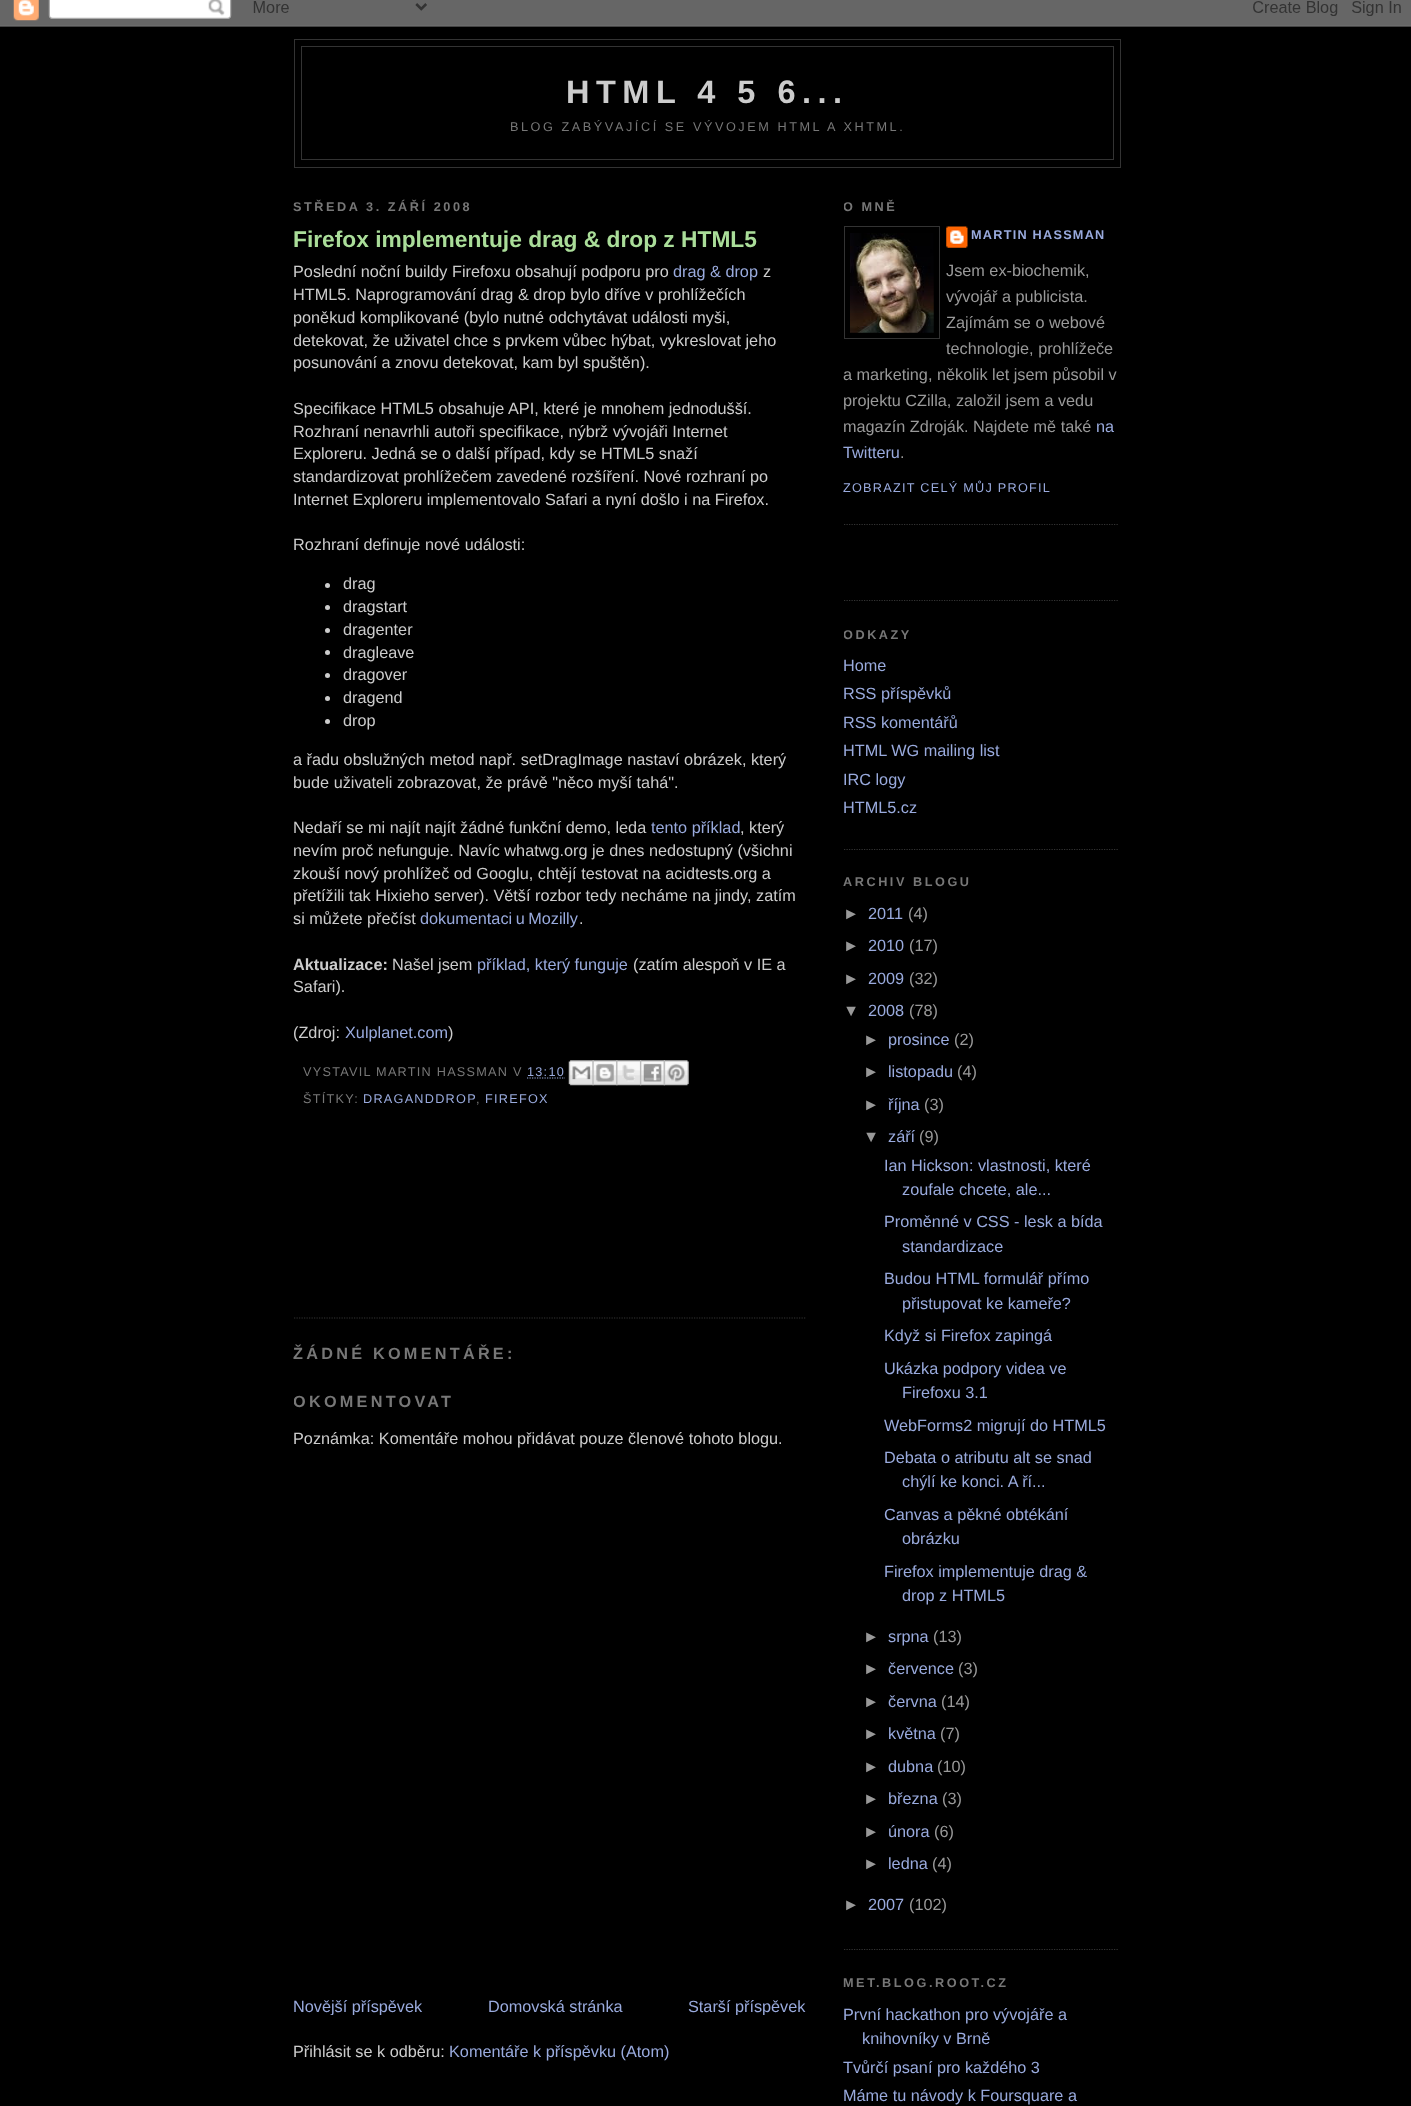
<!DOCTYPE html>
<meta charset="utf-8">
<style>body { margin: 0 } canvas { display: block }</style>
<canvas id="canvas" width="1411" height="2106"></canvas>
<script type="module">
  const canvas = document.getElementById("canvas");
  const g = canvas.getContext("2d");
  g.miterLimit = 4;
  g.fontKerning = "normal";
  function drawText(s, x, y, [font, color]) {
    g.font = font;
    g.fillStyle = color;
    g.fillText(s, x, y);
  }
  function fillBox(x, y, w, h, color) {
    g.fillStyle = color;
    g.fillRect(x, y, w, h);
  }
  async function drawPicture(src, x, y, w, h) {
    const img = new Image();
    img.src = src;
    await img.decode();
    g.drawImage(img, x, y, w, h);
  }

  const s1 = ["bold 32.5px Liberation Sans", "#CCCCCC"];
  const s2 = ["12.7px Liberation Sans", "#777777"];
  const s3 = ["bold 12.7px Liberation Sans", "#777777"];
  const s4 = ["bold 22.75px Liberation Sans", "#AADD99"];
  const s5 = ["16.25px Liberation Sans", "#CCCCCC"];
  const s6 = ["16.25px Liberation Sans", "#99AADD"];
  const s7 = ["bold 16.25px Liberation Sans", "#CCCCCC"];
  const s8 = ["12.7px Liberation Sans", "#99AADD"];
  const s9 = ["bold 16.25px Liberation Sans", "#777777"];
  const s10 = ["bold 12.7px Liberation Sans", "#99AADD"];
  const s11 = ["16.25px Liberation Sans", "#999999"];

  fillBox(0, 0, 1411, 2106, "#000000");
  await drawPicture("pic1.png", 0, 0, 1411, 27);
  g.strokeStyle = "#333333";
  g.strokeRect(294.5, 39.5, 826, 128);
  g.strokeRect(301.5, 46.5, 812, 113);
  g.letterSpacing = "6.5px";
  drawText("HTML 4 5 6...", 566, 103, s1);
  g.letterSpacing = "2.55px";
  drawText("BLOG ZABÝVAJÍCÍ SE VÝVOJEM HTML A XHTML.", 510, 131, s2);
  drawText("STŘEDA 3. ZÁŘÍ 2008", 293, 211, s3);
  g.beginPath();
  g.moveTo(294, 1318);
  g.lineTo(806, 1318);
  g.lineWidth = 1.2;
  g.setLineDash([1.25, 1.25]);
  g.stroke();
  g.letterSpacing = "0px";
  drawText("Firefox implementuje drag & drop z HTML5", 293, 247, s4);
  drawText("Poslední noční buildy Firefoxu obsahují podporu pro", 293, 277, s5);
  drawText("drag & drop", 673, 277, s6);
  drawText("z", 763, 277, s5);
  drawText("HTML5. Naprogramování drag & drop bylo dříve v prohlížečích", 293, 300, s5);
  drawText("poněkud komplikované (bylo nutné odchytávat události myši,", 293, 323, s5);
  g.save();
  g.beginPath();
  g.rect(294, 180, 512, 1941);
  g.clip();
  drawText("detekovat, že uživatel chce s prvkem vůbec hýbat, vykreslovat jeho", 293, 346, s5);
  g.restore();
  drawText("posunování a znovu detekovat, kam byl spuštěn).", 293, 368, s5);
  drawText("Specifikace HTML5 obsahuje API, které je mnohem jednodušší.", 293, 414, s5);
  drawText("Rozhraní nenavrhli autoři specifikace, nýbrž vývojáři Internet", 293, 437, s5);
  drawText("Exploreru. Jedná se o další případ, kdy se HTML5 snaží", 293, 459, s5);
  drawText("standardizovat prohlížečem zavedené rozšíření. Nové rozhraní po", 293, 482, s5);
  drawText("Internet Exploreru implementovalo Safari a nyní došlo i na Firefox.", 293, 505, s5);
  drawText("Rozhraní definuje nové události:", 293, 550, s5);
  g.beginPath();
  g.arc(327.5, 585.5, 2.5, 0, Math.PI * 2);
  g.fill();
  drawText("drag", 343, 589, s5);
  g.beginPath();
  g.arc(327.5, 607.5, 2.5, 0, Math.PI * 2);
  g.fill();
  drawText("dragstart", 343, 612, s5);
  g.beginPath();
  g.arc(327.5, 630.5, 2.5, 0, Math.PI * 2);
  g.fill();
  drawText("dragenter", 343, 635, s5);
  g.beginPath();
  g.arc(327.5, 652.5, 2.5, 0, Math.PI * 2);
  g.fill();
  drawText("dragleave", 343, 658, s5);
  g.beginPath();
  g.arc(327.5, 675.5, 2.5, 0, Math.PI * 2);
  g.fill();
  drawText("dragover", 343, 680, s5);
  g.beginPath();
  g.arc(327.5, 698.5, 2.5, 0, Math.PI * 2);
  g.fill();
  drawText("dragend", 343, 703, s5);
  g.beginPath();
  g.arc(327.5, 721.5, 2.5, 0, Math.PI * 2);
  g.fill();
  drawText("drop", 343, 726, s5);
  drawText("a řadu obslužných metod např. setDragImage nastaví obrázek, který", 293, 765, s5);
  drawText("bude uživateli zobrazovat, že právě \"něco myší tahá\".", 293, 788, s5);
  drawText("Nedaří se mi najít najít žádné funkční demo, leda", 293, 833, s5);
  drawText("tento příklad", 651, 833, s6);
  drawText(", který", 740, 833, s5);
  drawText("nevím proč nefunguje. Navíc whatwg.org je dnes nedostupný (všichni", 293, 856, s5);
  drawText("zkouší nový prohlížeč od Googlu, chtějí testovat na acidtests.org a", 293, 879, s5);
  drawText("přetížili tak Hixieho server). Větší rozbor tedy necháme na jindy, zatím", 293, 901, s5);
  drawText("si můžete přečíst", 293, 924, s5);
  g.wordSpacing = "-1px";
  drawText("dokumentaci u Mozilly", 420, 924, s6);
  g.wordSpacing = "0px";
  drawText(".", 579, 924, s5);
  drawText("Aktualizace:", 293, 970, s7);
  drawText("Našel jsem", 392, 970, s5);
  drawText("příklad, který funguje", 477, 970, s6);
  drawText("(zatím alespoň v IE a", 633, 970, s5);
  drawText("Safari).", 293, 992, s5);
  drawText("(Zdroj:", 293, 1038, s5);
  drawText("Xulplanet.com", 345, 1038, s6);
  drawText(")", 448, 1038, s5);
  g.letterSpacing = "1.25px";
  drawText("VYSTAVIL MARTIN HASSMAN V", 303, 1076, s2);
  drawText("13:10", 527, 1076, s8);
  g.beginPath();
  g.moveTo(527, 1078);
  g.lineTo(565, 1078);
  g.strokeStyle = "#99AADD";
  g.stroke();
  await drawPicture("pic2.png", 568, 1060, 26, 26);
  await drawPicture("pic3.png", 592, 1060, 26, 26);
  await drawPicture("pic4.png", 616, 1060, 26, 26);
  await drawPicture("pic5.png", 640, 1060, 25, 26);
  await drawPicture("pic6.png", 663, 1060, 26, 26);
  drawText("ŠTÍTKY:", 303, 1103, s2);
  drawText("DRAGANDDROP", 363, 1103, s8);
  drawText(",", 476, 1103, s2);
  drawText("FIREFOX", 485, 1103, s8);
  g.letterSpacing = "3.25px";
  drawText("ŽÁDNÉ KOMENTÁŘE:", 293, 1359, s9);
  g.save();
  g.beginPath();
  g.rect(294, 180, 512, 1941);
  g.clip();
  drawText("OKOMENTOVAT", 293, 1407, s9);
  g.restore();
  g.letterSpacing = "0px";
  drawText("Poznámka: Komentáře mohou přidávat pouze členové tohoto blogu.", 293, 1444, s5);
  g.save();
  g.beginPath();
  g.rect(294, 1996, 512, 19);
  g.clip();
  drawText("Novější příspěvek", 293, 2012, s6);
  g.restore();
  drawText("Domovská stránka", 488, 2012, s6);
  g.save();
  g.beginPath();
  g.rect(294, 1996, 512, 19);
  g.clip();
  drawText("Starší příspěvek", 688, 2012, s6);
  g.restore();
  drawText("Přihlásit se k odběru:", 293, 2057, s5);
  drawText("Komentáře k příspěvku (Atom)", 449, 2057, s6);
  g.beginPath();
  g.moveTo(844, 524.5);
  g.lineTo(1119, 524.5);
  g.strokeStyle = "#333333";
  g.stroke();
  g.save();
  g.beginPath();
  g.rect(844, 180, 275, 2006);
  g.clip();
  g.letterSpacing = "2.55px";
  drawText("O MNĚ", 843, 211, s3);
  g.restore();
  g.lineWidth = 1;
  g.setLineDash([]);
  g.strokeRect(844.5, 226.5, 95, 112);
  await drawPicture("pic7.png", 850, 233, 84, 100);
  await drawPicture("pic8.png", 946, 226, 22, 22);
  g.letterSpacing = "1.25px";
  drawText("MARTIN HASSMAN", 971, 239, s10);
  g.letterSpacing = "0px";
  drawText("Jsem ex-biochemik,", 946, 276, s11);
  drawText("vývojář a publicista.", 946, 302, s11);
  drawText("Zajímám se o webové", 946, 328, s11);
  drawText("technologie, prohlížeče", 946, 354, s11);
  drawText("a marketing, několik let jsem působil v", 843, 380, s11);
  drawText("projektu CZilla, založil jsem a vedu", 843, 406, s11);
  drawText("magazín Zdroják. Najdete mě také", 843, 432, s11);
  drawText("na", 1096, 432, s6);
  drawText("Twitteru", 843, 458, s6);
  drawText(".", 900, 458, s11);
  g.letterSpacing = "1.25px";
  drawText("ZOBRAZIT CELÝ MŮJ PROFIL", 843, 492, s8);
  g.beginPath();
  g.moveTo(844, 600.5);
  g.lineTo(1119, 600.5);
  g.lineWidth = 1.2;
  g.setLineDash([1.25, 1.25]);
  g.stroke();
  g.beginPath();
  g.moveTo(844, 849.5);
  g.lineTo(1119, 849.5);
  g.stroke();
  g.save();
  g.beginPath();
  g.rect(844, 180, 275, 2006);
  g.clip();
  g.letterSpacing = "2.55px";
  drawText("ODKAZY", 843, 639, s3);
  g.restore();
  g.letterSpacing = "0px";
  drawText("Home", 843, 671, s6);
  drawText("RSS příspěvků", 843, 699, s6);
  drawText("RSS komentářů", 843, 728, s6);
  drawText("HTML WG mailing list", 843, 756, s6);
  drawText("IRC logy", 843, 785, s6);
  drawText("HTML5.cz", 843, 813, s6);
  g.beginPath();
  g.moveTo(844, 1949.5);
  g.lineTo(1119, 1949.5);
  g.stroke();
  g.letterSpacing = "2.55px";
  drawText("ARCHIV BLOGU", 843, 886, s3);
  g.letterSpacing = "0px";
  drawText("►", 843, 919, s11);
  drawText("2011", 868, 919, s6);
  drawText("(4)", 908, 919, s11);
  drawText("►", 843, 951, s11);
  drawText("2010", 868, 951, s6);
  drawText("(17)", 909, 951, s11);
  drawText("►", 843, 984, s11);
  drawText("2009", 868, 984, s6);
  drawText("(32)", 909, 984, s11);
  drawText("▼", 843, 1016, s11);
  drawText("2008", 868, 1016, s6);
  drawText("(78)", 909, 1016, s11);
  drawText("►", 863, 1045, s11);
  drawText("prosince", 888, 1045, s6);
  drawText("(2)", 954, 1045, s11);
  drawText("►", 863, 1077, s11);
  drawText("listopadu", 888, 1077, s6);
  drawText("(4)", 957, 1077, s11);
  drawText("►", 863, 1110, s11);
  drawText("října", 888, 1110, s6);
  drawText("(3)", 924, 1110, s11);
  drawText("▼", 863, 1142, s11);
  drawText("září", 888, 1142, s6);
  drawText("(9)", 919, 1142, s11);
  drawText("Ian Hickson: vlastnosti, které", 884, 1171, s6);
  drawText("zoufale chcete, ale...", 902, 1195, s6);
  drawText("Proměnné v CSS - lesk a bída", 884, 1227, s6);
  drawText("standardizace", 902, 1252, s6);
  drawText("Budou HTML formulář přímo", 884, 1284, s6);
  drawText("přistupovat ke kameře?", 902, 1309, s6);
  drawText("Když si Firefox zapingá", 884, 1341, s6);
  drawText("Ukázka podpory videa ve", 884, 1374, s6);
  drawText("Firefoxu 3.1", 902, 1398, s6);
  drawText("WebForms2 migrují do HTML5", 884, 1431, s6);
  drawText("Debata o atributu alt se snad", 884, 1463, s6);
  drawText("chýlí ke konci. A ří...", 902, 1487, s6);
  drawText("Canvas a pěkné obtékání", 884, 1520, s6);
  drawText("obrázku", 902, 1544, s6);
  drawText("Firefox implementuje drag &", 884, 1577, s6);
  drawText("drop z HTML5", 902, 1601, s6);
  drawText("►", 863, 1642, s11);
  drawText("srpna", 888, 1642, s6);
  drawText("(13)", 933, 1642, s11);
  drawText("►", 863, 1674, s11);
  drawText("července", 888, 1674, s6);
  drawText("(3)", 958, 1674, s11);
  drawText("►", 863, 1707, s11);
  drawText("června", 888, 1707, s6);
  drawText("(14)", 941, 1707, s11);
  drawText("►", 863, 1739, s11);
  drawText("května", 888, 1739, s6);
  drawText("(7)", 940, 1739, s11);
  drawText("►", 863, 1772, s11);
  drawText("dubna", 888, 1772, s6);
  drawText("(10)", 937, 1772, s11);
  drawText("►", 863, 1804, s11);
  drawText("března", 888, 1804, s6);
  drawText("(3)", 942, 1804, s11);
  drawText("►", 863, 1837, s11);
  drawText("února", 888, 1837, s6);
  drawText("(6)", 934, 1837, s11);
  drawText("►", 863, 1869, s11);
  drawText("ledna", 888, 1869, s6);
  drawText("(4)", 932, 1869, s11);
  drawText("►", 843, 1910, s11);
  drawText("2007", 868, 1910, s6);
  drawText("(102)", 909, 1910, s11);
  g.letterSpacing = "2.55px";
  drawText("MET.BLOG.ROOT.CZ", 843, 1987, s3);
  g.letterSpacing = "0px";
  drawText("První hackathon pro vývojáře a", 843, 2020, s6);
  drawText("knihovníky v Brně", 862, 2044, s6);
  drawText("Tvůrčí psaní pro každého 3", 843, 2073, s6);
  drawText("Máme tu návody k Foursquare a", 843, 2101, s6);
</script>
